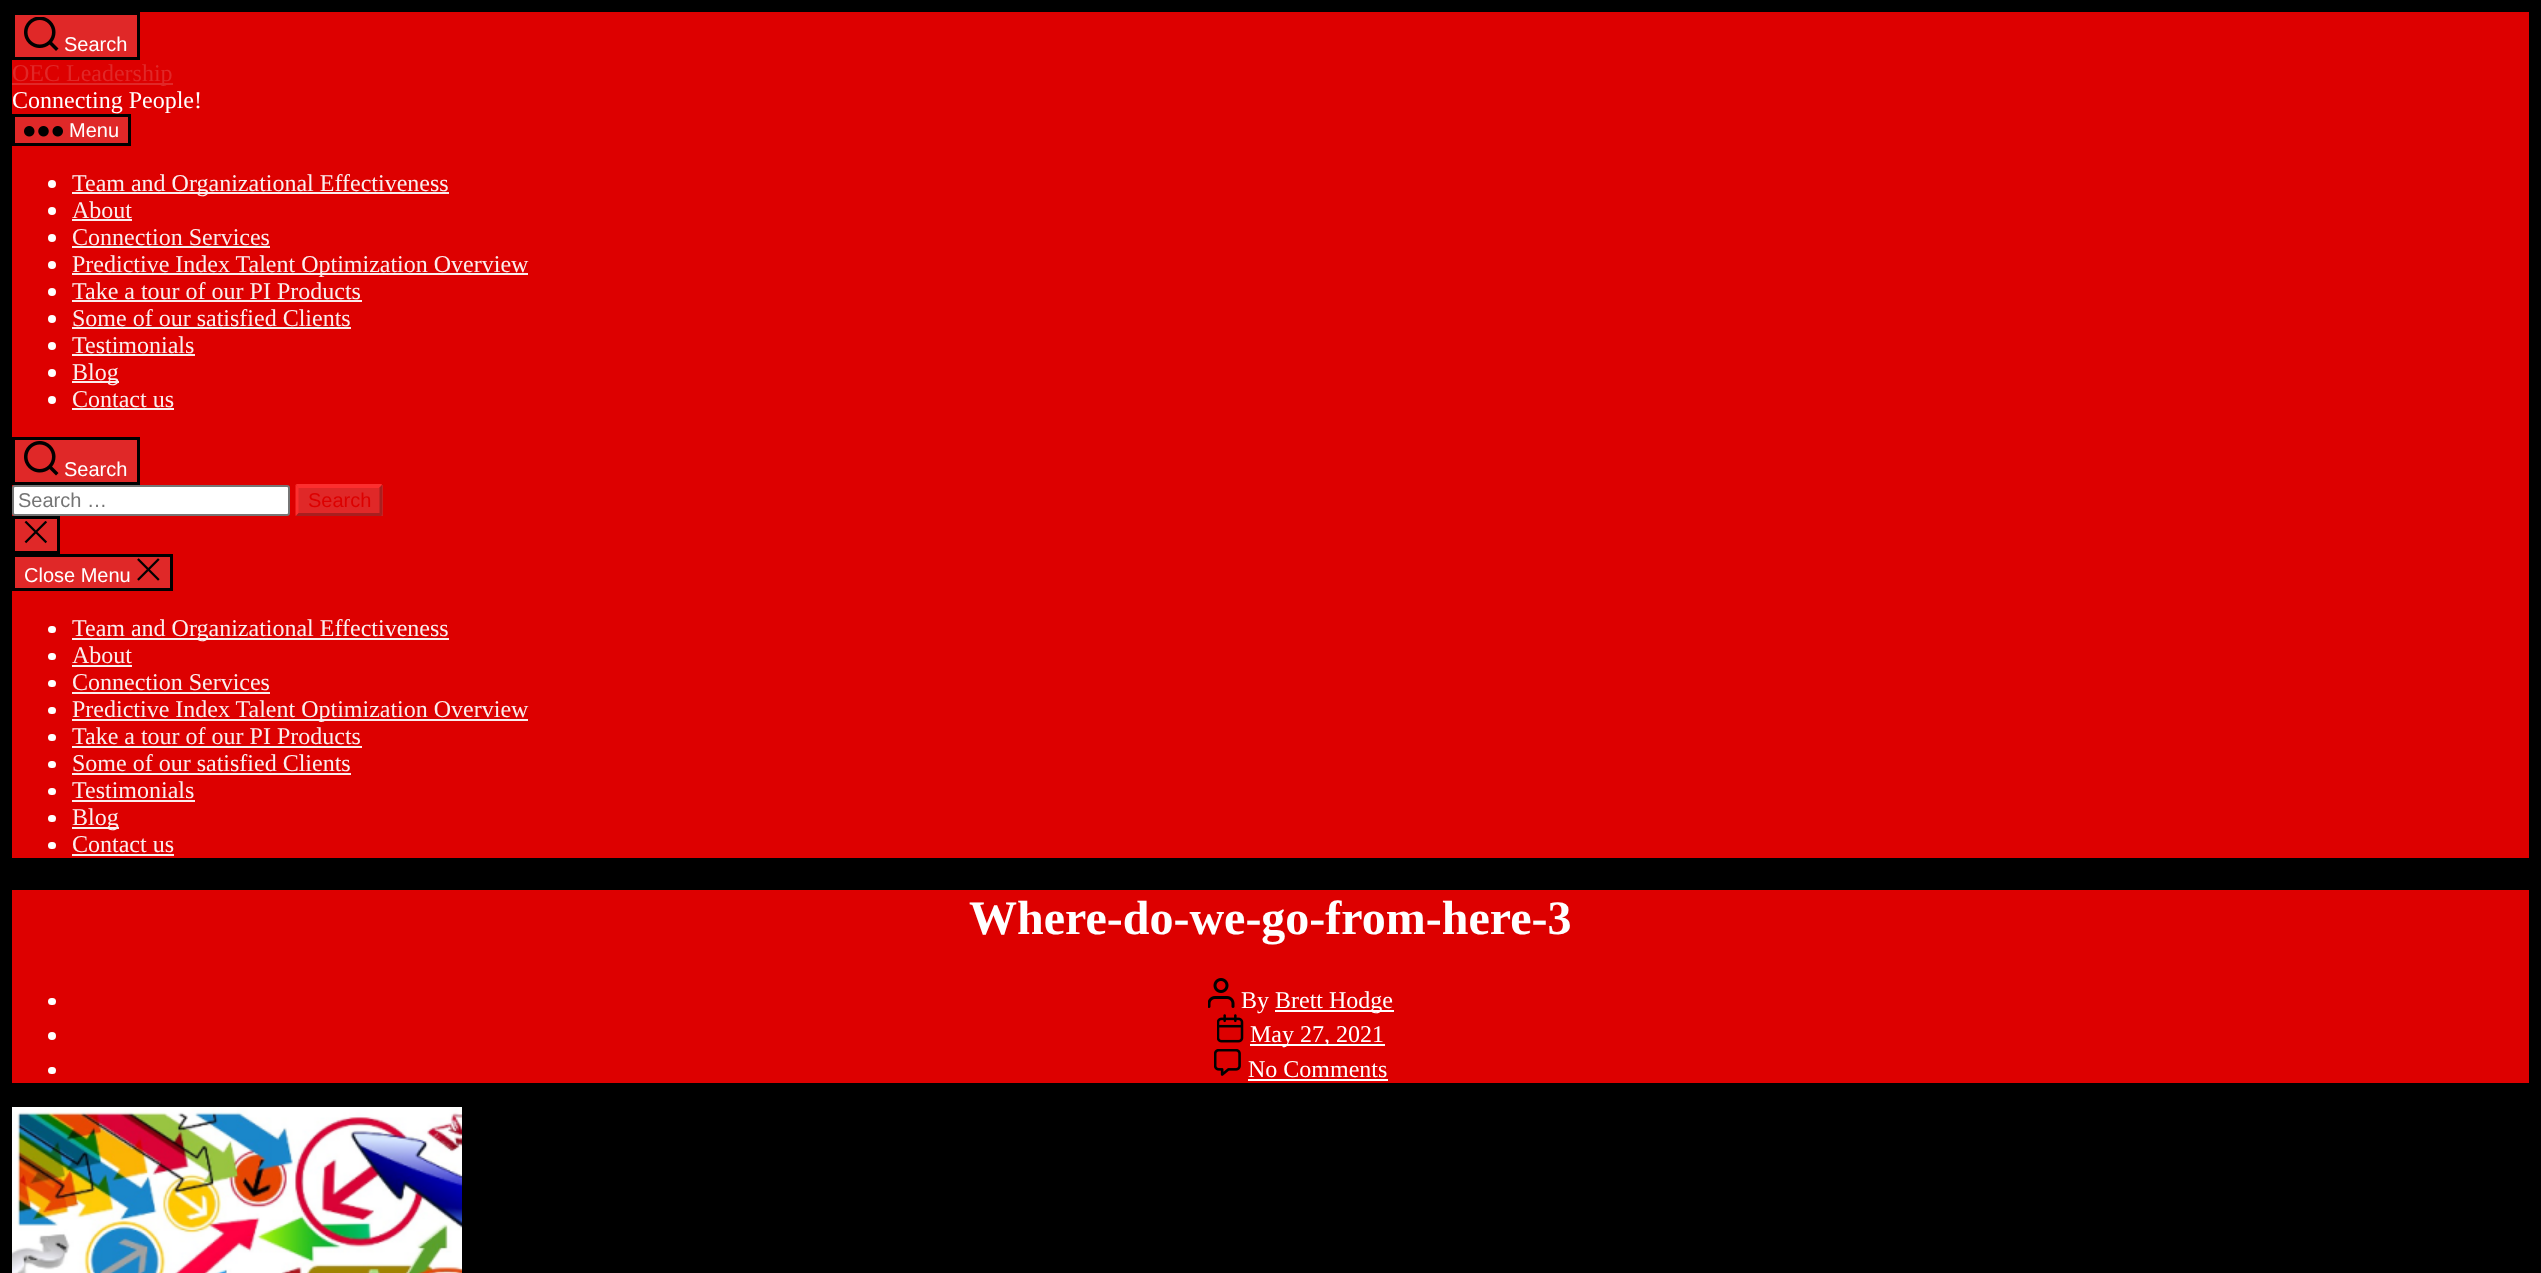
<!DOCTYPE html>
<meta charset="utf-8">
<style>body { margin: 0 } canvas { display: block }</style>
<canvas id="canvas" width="2541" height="1273"></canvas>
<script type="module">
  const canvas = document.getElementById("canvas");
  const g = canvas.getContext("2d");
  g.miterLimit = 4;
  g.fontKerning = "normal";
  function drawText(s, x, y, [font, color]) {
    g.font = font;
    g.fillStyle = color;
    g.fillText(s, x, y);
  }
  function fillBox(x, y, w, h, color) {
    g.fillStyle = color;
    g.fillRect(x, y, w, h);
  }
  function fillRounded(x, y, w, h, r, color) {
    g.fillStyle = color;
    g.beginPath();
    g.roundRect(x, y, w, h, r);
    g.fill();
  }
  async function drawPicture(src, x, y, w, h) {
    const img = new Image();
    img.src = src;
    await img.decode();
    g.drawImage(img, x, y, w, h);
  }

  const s1 = ["20px Liberation Sans", "#FFFFFF"];
  const s2 = ["24px Liberation Serif", "#E02828"];
  const s3 = ["24px Liberation Serif", "#FFFFFF"];
  const s4 = ["24px Liberation Serif", "#FBEEEE"];
  const s5 = ["20px Liberation Sans", "#757575"];
  const s6 = ["20px Liberation Sans", "#DD0000"];
  const s7 = ["bold 48px Liberation Serif", "#FFFFFF"];

  fillBox(0, 0, 2541, 1273, "#000000");
  fillBox(12, 12, 2517, 846, "#DD0000");
  g.fillStyle = "#E02828";
  g.beginPath();
  g.rect(13.5, 13.5, 125, 45);
  g.fill();
  g.strokeStyle = "#000000";
  g.lineWidth = 3;
  g.stroke();
  await drawPicture("pic1.png", 24, 17, 35, 34);
  drawText("Search", 64, 51, s1);
  fillBox(12, 83, 161, 2, "#E02828");
  drawText("OEC Leadership", 12, 81, s2);
  drawText("Connecting People!", 12, 108, s3);
  g.fillStyle = "#E02828";
  g.beginPath();
  g.rect(13.5, 115.5, 116, 29);
  g.fill();
  g.stroke();
  await drawPicture("pic2.png", 24, 126, 39, 11);
  drawText("Menu", 69, 137, s1);
  g.beginPath();
  g.arc(52, 184, 4, 0, Math.PI * 2);
  g.fill();
  fillBox(72, 192, 377, 2, "#FBEEEE");
  drawText("Team and Organizational Effectiveness", 72, 191, s4);
  g.fillStyle = "#FFFFFF";
  g.beginPath();
  g.arc(52, 211, 4, 0, Math.PI * 2);
  g.fill();
  drawText("About", 72, 218, s4);
  fillBox(72, 219, 60, 2, "#FBEEEE");
  g.fillStyle = "#FFFFFF";
  g.beginPath();
  g.arc(52, 238, 4, 0, Math.PI * 2);
  g.fill();
  drawText("Connection Services", 72, 245, s4);
  fillBox(72, 246, 198, 2, "#FBEEEE");
  g.fillStyle = "#FFFFFF";
  g.beginPath();
  g.arc(52, 265, 4, 0, Math.PI * 2);
  g.fill();
  fillBox(72, 273, 456, 2, "#FBEEEE");
  drawText("Predictive Index Talent Optimization Overview", 72, 272, s4);
  g.fillStyle = "#FFFFFF";
  g.beginPath();
  g.arc(52, 292, 4, 0, Math.PI * 2);
  g.fill();
  drawText("Take a tour of our PI Products", 72, 299, s4);
  fillBox(72, 300, 290, 2, "#FBEEEE");
  g.fillStyle = "#FFFFFF";
  g.beginPath();
  g.arc(52, 319, 4, 0, Math.PI * 2);
  g.fill();
  drawText("Some of our satisfied Clients", 72, 326, s4);
  fillBox(72, 327, 279, 2, "#FBEEEE");
  g.fillStyle = "#FFFFFF";
  g.beginPath();
  g.arc(52, 346, 4, 0, Math.PI * 2);
  g.fill();
  drawText("Testimonials", 72, 353, s4);
  fillBox(72, 354, 123, 2, "#FBEEEE");
  g.fillStyle = "#FFFFFF";
  g.beginPath();
  g.arc(52, 373, 4, 0, Math.PI * 2);
  g.fill();
  fillBox(72, 381, 47, 2, "#FBEEEE");
  drawText("Blog", 72, 380, s4);
  g.fillStyle = "#FFFFFF";
  g.beginPath();
  g.arc(52, 400, 4, 0, Math.PI * 2);
  g.fill();
  drawText("Contact us", 72, 407, s4);
  fillBox(72, 408, 102, 2, "#FBEEEE");
  g.fillStyle = "#E02828";
  g.beginPath();
  g.rect(13.5, 438.5, 125, 45);
  g.fill();
  g.stroke();
  await drawPicture("pic3.png", 24, 441, 35, 35);
  drawText("Search", 64, 476, s1);
  g.beginPath();
  g.roundRect(13, 486, 276, 29, 2);
  g.fill();
  g.strokeStyle = "#767676";
  g.lineWidth = 2;
  g.stroke();
  drawText("Search …", 18, 507, s5);
  fillBox(296, 485, 87, 31, "#E02828");
  g.fillStyle = "#FC2F2F";
  g.beginPath();
  g.moveTo(296, 484);
  g.lineTo(382, 484);
  g.lineTo(380, 488);
  g.lineTo(298, 488);
  g.closePath();
  g.fill();
  g.fillStyle = "#A81F1F";
  g.beginPath();
  g.moveTo(382.5, 484.5);
  g.lineTo(382.5, 516);
  g.lineTo(379.5, 513);
  g.lineTo(379.5, 487.5);
  g.closePath();
  g.fill();
  g.beginPath();
  g.moveTo(382, 516);
  g.lineTo(296, 516);
  g.lineTo(298, 513);
  g.lineTo(380, 513);
  g.closePath();
  g.fill();
  g.fillStyle = "#FC2F2F";
  g.beginPath();
  g.moveTo(295.5, 516);
  g.lineTo(295.5, 484.5);
  g.lineTo(298.5, 487.5);
  g.lineTo(298.5, 513);
  g.closePath();
  g.fill();
  drawText("Search", 308, 507, s6);
  g.fillStyle = "#E02828";
  g.beginPath();
  g.rect(13.5, 517.5, 45, 35);
  g.fill();
  g.strokeStyle = "#000000";
  g.lineWidth = 3;
  g.stroke();
  await drawPicture("pic4.png", 24, 521, 23, 23);
  g.beginPath();
  g.rect(13.5, 555.5, 158, 34);
  g.fill();
  g.stroke();
  drawText("Close Menu", 24, 582, s1);
  await drawPicture("pic5.png", 137, 558, 23, 23);
  fillRounded(48, 626, 8, 7, 3.5, "#FFFFFF");
  fillBox(72, 638, 377, 2, "#FBEEEE");
  drawText("Team and Organizational Effectiveness", 72, 636, s4);
  fillRounded(48, 653, 8, 7, 3.5, "#FFFFFF");
  drawText("About", 72, 663, s4);
  fillBox(72, 665, 60, 2, "#FBEEEE");
  fillRounded(48, 680, 8, 7, 3.5, "#FFFFFF");
  drawText("Connection Services", 72, 690, s4);
  fillBox(72, 692, 198, 2, "#FBEEEE");
  fillRounded(48, 707, 8, 7, 3.5, "#FFFFFF");
  fillBox(72, 719, 456, 2, "#FBEEEE");
  drawText("Predictive Index Talent Optimization Overview", 72, 717, s4);
  fillRounded(48, 734, 8, 7, 3.5, "#FFFFFF");
  drawText("Take a tour of our PI Products", 72, 744, s4);
  fillBox(72, 746, 290, 2, "#FBEEEE");
  fillRounded(48, 761, 8, 7, 3.5, "#FFFFFF");
  drawText("Some of our satisfied Clients", 72, 771, s4);
  fillBox(72, 773, 279, 2, "#FBEEEE");
  fillRounded(48, 788, 8, 7, 3.5, "#FFFFFF");
  drawText("Testimonials", 72, 798, s4);
  fillBox(72, 800, 123, 2, "#FBEEEE");
  fillRounded(48, 815, 8, 7, 3.5, "#FFFFFF");
  fillBox(72, 827, 47, 2, "#FBEEEE");
  drawText("Blog", 72, 825, s4);
  fillRounded(48, 842, 8, 7, 3.5, "#FFFFFF");
  drawText("Contact us", 72, 852, s4);
  fillBox(72, 854, 102, 2, "#FBEEEE");
  fillBox(12, 890, 2517, 193, "#DD0000");
  drawText("Where-do-we-go-from-here-3", 969, 934, s7);
  fillRounded(48, 998, 8, 7, 3.5, "#FFFFFF");
  await drawPicture("pic6.png", 1208, 978, 27, 30);
  drawText("By", 1241, 1008, s3);
  fillBox(1275, 1010, 119, 2, "#FFFFFF");
  drawText("Brett Hodge", 1275, 1008, s3);
  g.beginPath();
  g.arc(52, 1036, 4, 0, Math.PI * 2);
  g.fill();
  await drawPicture("pic7.png", 1217, 1014, 27, 29);
  fillBox(1250, 1044, 135, 2, "#FFFFFF");
  drawText("May 27, 2021", 1250, 1042, s3);
  fillRounded(48, 1067, 8, 7, 3.5, "#FFFFFF");
  await drawPicture("pic8.png", 1214, 1049, 27, 27);
  drawText("No Comments", 1248, 1077, s3);
  fillBox(1248, 1079, 140, 2, "#FFFFFF");
  await drawPicture("pic9.png", 12, 1107, 450, 166);
</script>
